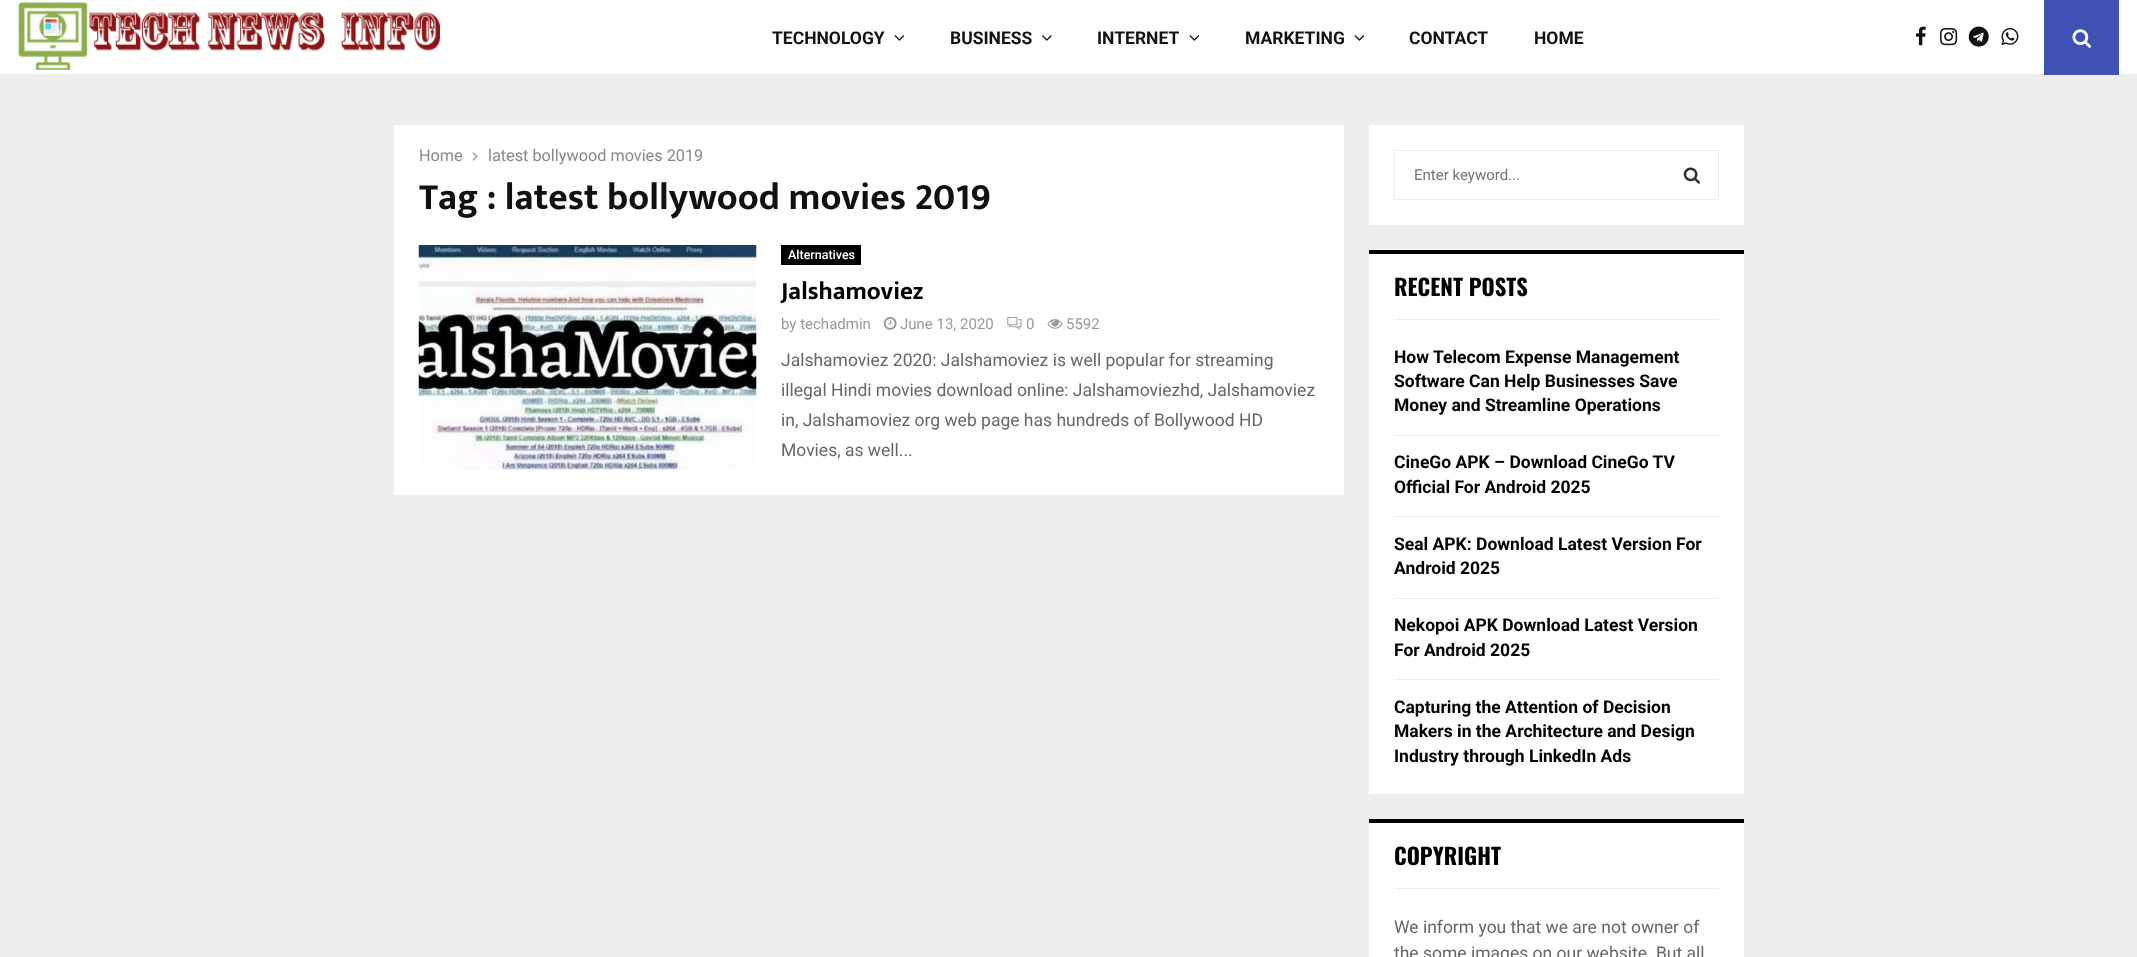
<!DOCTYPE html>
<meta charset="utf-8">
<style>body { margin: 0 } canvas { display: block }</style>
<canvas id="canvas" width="2137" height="957"></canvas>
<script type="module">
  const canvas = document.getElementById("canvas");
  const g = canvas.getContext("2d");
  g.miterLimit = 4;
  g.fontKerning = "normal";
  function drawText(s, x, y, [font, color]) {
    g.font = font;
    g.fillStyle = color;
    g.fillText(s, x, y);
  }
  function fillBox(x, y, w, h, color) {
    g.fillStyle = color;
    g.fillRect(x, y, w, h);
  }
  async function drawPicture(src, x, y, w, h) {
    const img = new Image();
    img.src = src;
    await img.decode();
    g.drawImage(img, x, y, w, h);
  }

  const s1 = ["bold 17.5px Roboto", "#111111"];
  const s2 = ["16.25px Roboto", "#888888"];
  const s3 = ["bold 37.5px Mukta Vaani", "#111111"];
  const s4 = ["500 12.5px Roboto", "#FFFFFF"];
  const s5 = ["bold 25px Mukta Vaani", "#000000"];
  const s6 = ["15px Roboto", "#999999"];
  const s7 = ["17.5px Roboto", "#666666"];
  const s8 = ["15px Roboto", "#757575"];
  const s9 = ["bold 22.5px Oswald", "#000000"];
  const s10 = ["bold 17.5px Roboto", "#000000"];

  fillBox(0, 0, 2137, 957, "#EEEEEE");
  fillBox(0, 0, 2137, 74, "#FFFFFF");
  await drawPicture("pic1.png", 18, 1, 422, 69);
  drawText("TECHNOLOGY", 772, 44, s1);
  await drawPicture("pic2.png", 894, 35, 11, 6);
  drawText("BUSINESS", 950, 44, s1);
  await drawPicture("pic3.png", 1042, 35, 10, 6);
  drawText("INTERNET", 1097, 44, s1);
  await drawPicture("pic2.png", 1189, 35, 11, 6);
  drawText("MARKETING", 1245, 44, s1);
  await drawPicture("pic2.png", 1354, 35, 11, 6);
  drawText("CONTACT", 1409, 44, s1);
  drawText("HOME", 1534, 44, s1);
  await drawPicture("pic4.png", 1916, 26, 10, 20);
  await drawPicture("pic5.png", 1940, 28, 18, 18);
  await drawPicture("pic6.png", 1968, 26, 21, 21);
  await drawPicture("pic7.png", 2001, 28, 18, 18);
  fillBox(2044, 0, 75, 75, "#3F51B5");
  await drawPicture("pic8.png", 2072, 29, 20, 19);
  fillBox(394, 125, 950, 370, "#FFFFFF");
  drawText("Home", 419, 161, s2);
  await drawPicture("pic9.png", 472, 152, 6, 9);
  drawText("latest bollywood movies 2019", 488, 161, s2);
  drawText("Tag : latest bollywood movies 2019", 419, 209, s3);
  await drawPicture("pic10.png", 418, 245, 339, 225);
  fillBox(781, 245, 80, 20, "#000000");
  drawText("Alternatives", 788, 259, s4);
  drawText("Jalshamoviez", 781, 299, s5);
  drawText("by techadmin", 781, 329, s6);
  await drawPicture("pic11.png", 883, 317, 14, 13);
  drawText("June 13, 2020", 900, 329, s6);
  await drawPicture("pic12.png", 1007, 317, 15, 13);
  drawText("0", 1026, 329, s6);
  await drawPicture("pic13.png", 1047, 319, 16, 10);
  drawText("5592", 1066, 329, s6);
  drawText("Jalshamoviez 2020: Jalshamoviez is well popular for streaming", 781, 366, s7);
  drawText("illegal Hindi movies download online: Jalshamoviezhd, Jalshamoviez", 781, 396, s7);
  drawText("in, Jalshamoviez org web page has hundreds of Bollywood HD", 781, 426, s7);
  drawText("Movies, as well...", 781, 456, s7);
  fillBox(1369, 125, 375, 100, "#FFFFFF");
  g.strokeStyle = "#ECECEC";
  g.strokeRect(1394.5, 150.5, 324, 49);
  drawText("Enter keyword...", 1414, 180, s8);
  await drawPicture("pic14.png", 1683, 167, 17, 17);
  fillBox(1369, 254, 375, 540, "#FFFFFF");
  fillBox(1394, 319, 325, 1, "#ECECEC");
  fillBox(1369, 250, 375, 4, "#000000");
  drawText("RECENT POSTS", 1394, 296, s9);
  fillBox(1394, 435, 325, 1, "#ECECEC");
  drawText("How Telecom Expense Management", 1394, 363, s10);
  drawText("Software Can Help Businesses Save", 1394, 387, s10);
  drawText("Money and Streamline Operations", 1394, 411, s10);
  fillBox(1394, 516, 325, 1, "#ECECEC");
  drawText("CineGo APK – Download CineGo TV", 1394, 468, s10);
  drawText("Official For Android 2025", 1394, 493, s10);
  fillBox(1394, 598, 325, 1, "#ECECEC");
  drawText("Seal APK: Download Latest Version For", 1394, 550, s10);
  drawText("Android 2025", 1394, 574, s10);
  fillBox(1394, 679, 325, 1, "#ECECEC");
  drawText("Nekopoi APK Download Latest Version", 1394, 631, s10);
  drawText("For Android 2025", 1394, 656, s10);
  drawText("Capturing the Attention of Decision", 1394, 713, s10);
  drawText("Makers in the Architecture and Design", 1394, 737, s10);
  drawText("Industry through LinkedIn Ads", 1394, 762, s10);
  fillBox(1369, 823, 375, 134, "#FFFFFF");
  fillBox(1394, 888, 325, 1, "#ECECEC");
  fillBox(1369, 819, 375, 4, "#000000");
  drawText("COPYRIGHT", 1394, 865, s9);
  drawText("We inform you that we are not owner of", 1394, 933, s7);
  drawText("the some images on our website. But all", 1394, 959, s7);
</script>
